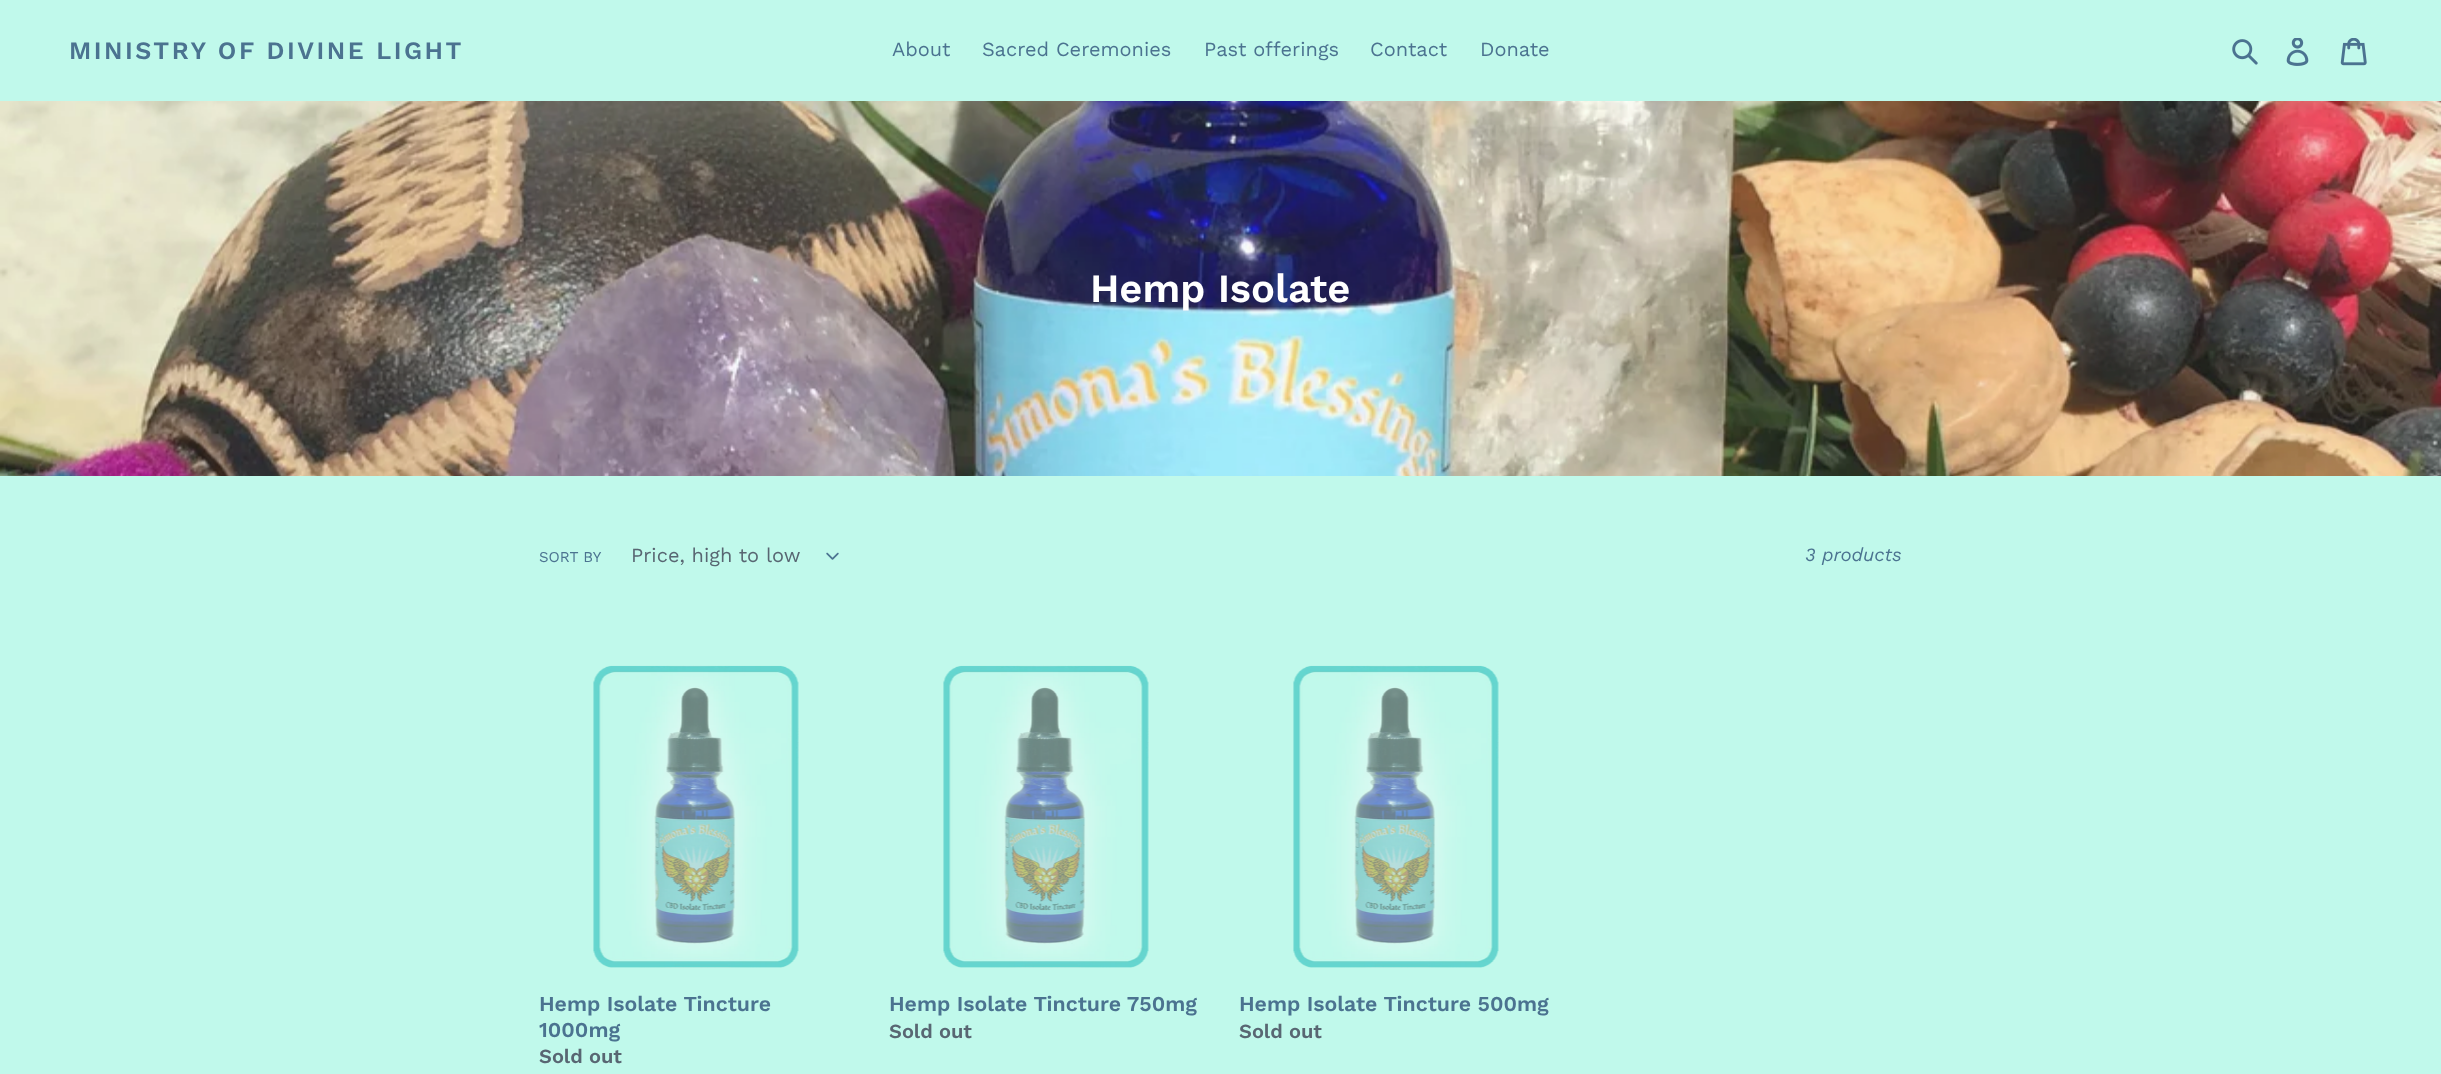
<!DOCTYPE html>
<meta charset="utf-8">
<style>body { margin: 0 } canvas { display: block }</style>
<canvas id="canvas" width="2441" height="1074"></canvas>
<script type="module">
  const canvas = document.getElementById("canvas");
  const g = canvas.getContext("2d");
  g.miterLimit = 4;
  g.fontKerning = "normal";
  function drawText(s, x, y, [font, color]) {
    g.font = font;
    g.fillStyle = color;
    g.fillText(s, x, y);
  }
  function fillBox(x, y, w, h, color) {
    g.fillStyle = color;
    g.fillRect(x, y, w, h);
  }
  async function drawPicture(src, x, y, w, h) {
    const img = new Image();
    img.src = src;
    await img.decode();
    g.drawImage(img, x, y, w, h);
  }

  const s1 = ["600 25px Work Sans", "#4B7390"];
  const s2 = ["20px Work Sans", "#4B7390"];
  const s3 = ["600 40px Work Sans", "#FFFFFF"];
  const s4 = ["15px Work Sans", "#4B7390"];
  const s5 = ["20px Work Sans", "#586672"];
  const s6 = ["italic 18.75px Work Sans", "#4B7390"];
  const s7 = ["600 21.25px Work Sans", "#4B7390"];
  const s8 = ["600 20px Work Sans", "#586672"];

  fillBox(0, 0, 2441, 1074, "#C0F9EB");
  g.letterSpacing = "2.5px";
  drawText("MINISTRY OF DIVINE LIGHT", 69, 59, s1);
  g.letterSpacing = "0px";
  drawText("About", 892, 56, s2);
  drawText("Sacred Ceremonies", 982, 56, s2);
  drawText("Past offerings", 1204, 56, s2);
  drawText("Contact", 1370, 56, s2);
  drawText("Donate", 1480, 56, s2);
  await drawPicture("pic1.png", 2232, 39, 26, 26);
  await drawPicture("pic2.png", 2286, 38, 23, 28);
  await drawPicture("pic3.png", 2340, 38, 27, 28);
  await drawPicture("pic4.png", 0, 101, 2441, 375);
  drawText("Hemp Isolate", 1090, 302, s3);
  drawText("SORT BY", 539, 562, s4);
  drawText("Price, high to low", 631, 562, s5);
  await drawPicture("pic5.png", 826, 552, 13, 8);
  drawText("3 products", 1805, 561, s6);
  await drawPicture("pic6.png", 593, 665, 206, 303);
  drawText("Hemp Isolate Tincture", 539, 1011, s7);
  drawText("1000mg", 539, 1037, s7);
  drawText("Sold out", 539, 1063, s8);
  await drawPicture("pic6.png", 943, 665, 206, 303);
  drawText("Hemp Isolate Tincture 750mg", 889, 1011, s7);
  drawText("Sold out", 889, 1038, s8);
  await drawPicture("pic6.png", 1293, 665, 206, 303);
  drawText("Hemp Isolate Tincture 500mg", 1239, 1011, s7);
  drawText("Sold out", 1239, 1038, s8);
</script>
